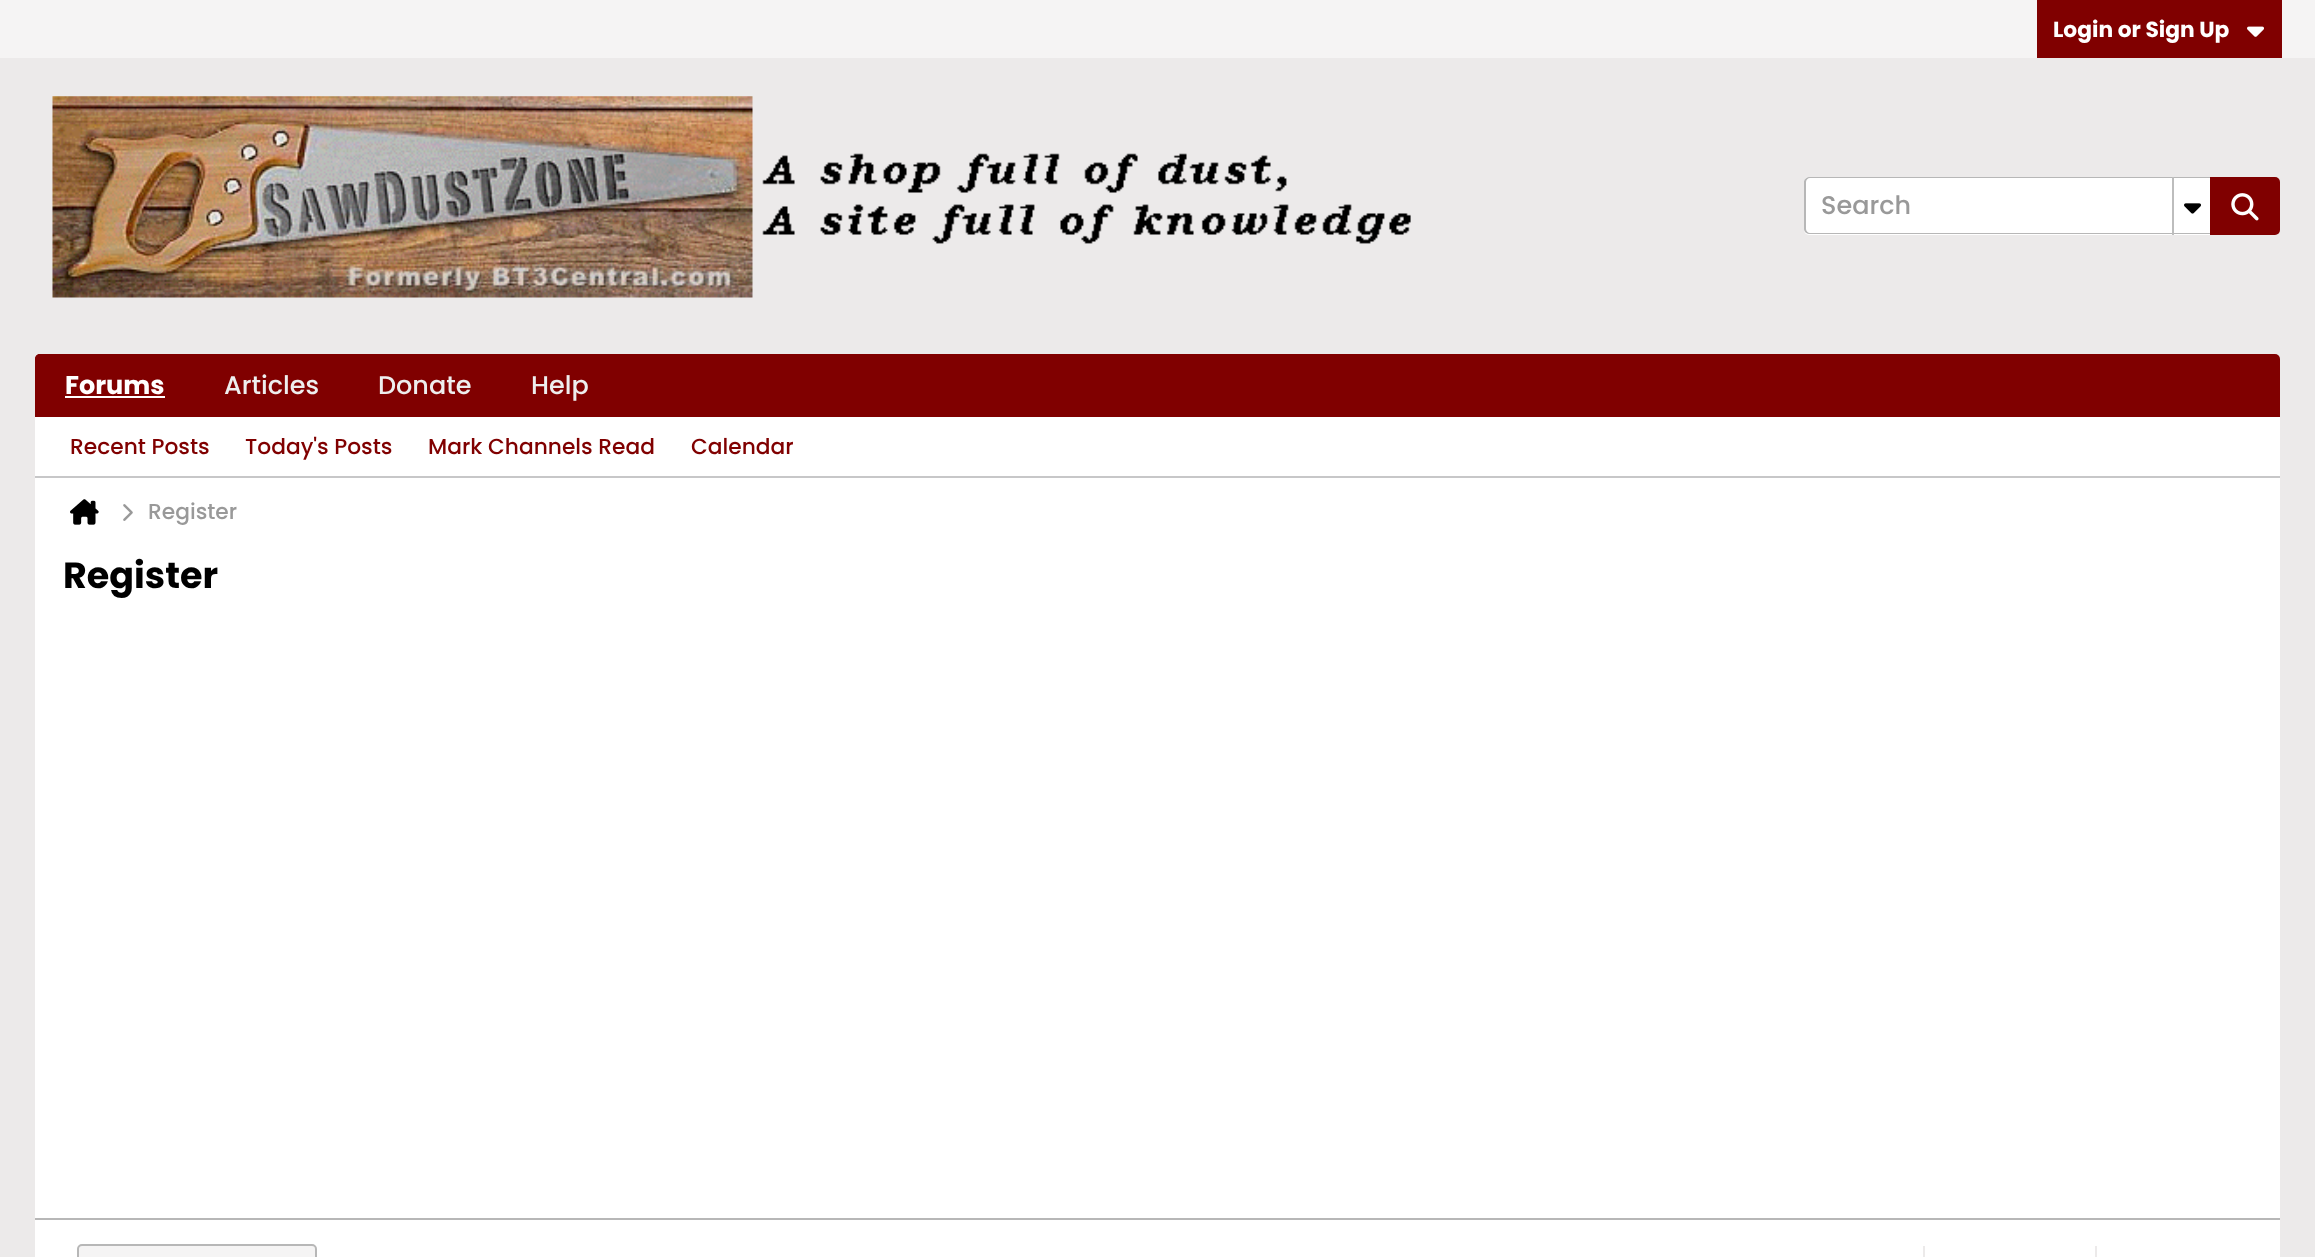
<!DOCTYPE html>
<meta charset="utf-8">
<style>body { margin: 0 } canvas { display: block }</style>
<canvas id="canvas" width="2315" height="1257"></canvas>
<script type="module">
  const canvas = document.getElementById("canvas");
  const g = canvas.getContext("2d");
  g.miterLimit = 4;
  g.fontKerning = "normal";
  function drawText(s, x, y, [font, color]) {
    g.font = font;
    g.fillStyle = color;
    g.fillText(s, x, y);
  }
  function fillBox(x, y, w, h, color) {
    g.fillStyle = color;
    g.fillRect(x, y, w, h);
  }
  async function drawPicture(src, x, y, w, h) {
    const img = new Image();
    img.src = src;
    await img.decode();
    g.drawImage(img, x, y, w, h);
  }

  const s1 = ["bold 21.75px Poppins", "#FFFFFF"];
  const s2 = ["500 25.5px Poppins", "#999999"];
  const s3 = ["bold 25.5px Poppins", "#FFFFFF"];
  const s4 = ["500 25.5px Poppins", "#EEEEEE"];
  const s5 = ["500 21.75px Poppins", "#800000"];
  const s6 = ["500 21.75px Poppins", "#999999"];
  const s7 = ["bold 36.5px Poppins", "#000000"];

  fillBox(0, 0, 2315, 1257, "#ECEAEA");
  fillBox(0, 0, 2315, 58, "#F5F4F4");
  fillBox(2037, 0, 245, 58, "#800000");
  drawText("Login or Sign Up", 2053, 37, s1);
  await drawPicture("pic1.png", 2247, 26, 17, 11);
  await drawPicture("pic2.png", 52, 96, 1359, 202);
  g.beginPath();
  g.roundRect(1804, 177, 406, 58, [5, 0, 0, 5]);
  g.fill();
  g.fillStyle = "#B7B7B7";
  g.beginPath();
  g.moveTo(1810, 177);
  g.lineTo(2210, 177);
  g.lineTo(2210, 234);
  g.lineTo(1810, 234);
  g.bezierCurveTo(1807, 234, 1804, 232, 1804, 229);
  g.lineTo(1804, 182);
  g.bezierCurveTo(1804, 179, 1807, 177, 1810, 177);
  g.closePath();
  g.moveTo(1810, 178);
  g.lineTo(2210, 178);
  g.lineTo(2210, 233);
  g.lineTo(1810, 233);
  g.bezierCurveTo(1808, 233, 1806, 231, 1806, 229);
  g.lineTo(1806, 182);
  g.bezierCurveTo(1806, 180, 1808, 178, 1810, 178);
  g.closePath();
  g.fill("evenodd");
  drawText("Search", 1821, 214, s2);
  fillBox(2172, 177, 2, 58, "#BDBDBD");
  await drawPicture("pic3.png", 2184, 203, 17, 11);
  g.fillStyle = "#800000";
  g.beginPath();
  g.roundRect(2210, 177, 70, 58, [0, 5, 5, 0]);
  g.fill();
  await drawPicture("pic4.png", 2231, 193, 28, 28);
  g.beginPath();
  g.roundRect(35, 354, 2245, 63, [5, 5, 0, 0]);
  g.fill();
  g.beginPath();
  g.roundRect(35, 354, 159, 63, [5, 5, 0, 0]);
  g.fill();
  drawText("Forums", 65, 394, s3);
  fillBox(65, 396, 100, 2, "#FFFFFF");
  drawText("Articles", 224, 394, s4);
  drawText("Donate", 378, 394, s4);
  drawText("Help", 531, 394, s4);
  fillBox(35, 417, 2245, 59, "#FFFFFF");
  fillBox(35, 476, 2245, 2, "#C7C7C8");
  drawText("Recent Posts", 70, 454, s5);
  drawText("Today's Posts", 245, 454, s5);
  drawText("Mark Channels Read", 428, 454, s5);
  drawText("Calendar", 691, 454, s5);
  fillBox(35, 478, 2245, 740, "#FFFFFF");
  await drawPicture("pic5.png", 70, 499, 29, 26);
  await drawPicture("pic6.png", 123, 504, 10, 17);
  drawText("Register", 148, 519, s6);
  drawText("Register", 63, 588, s7);
  fillBox(35, 1220, 2245, 37, "#FFFFFF");
  fillBox(35, 1218, 2245, 2, "#B7B7B7");
  g.fillStyle = "#F5F4F4";
  g.beginPath();
  g.roundRect(78, 1245, 238, 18, 4);
  g.fill();
  g.strokeStyle = "#B7B7B7";
  g.lineWidth = 2;
  g.stroke();
  fillBox(1923, 1246, 2, 11, "#ECEAEA");
  fillBox(2095, 1246, 2, 11, "#ECEAEA");
</script>
